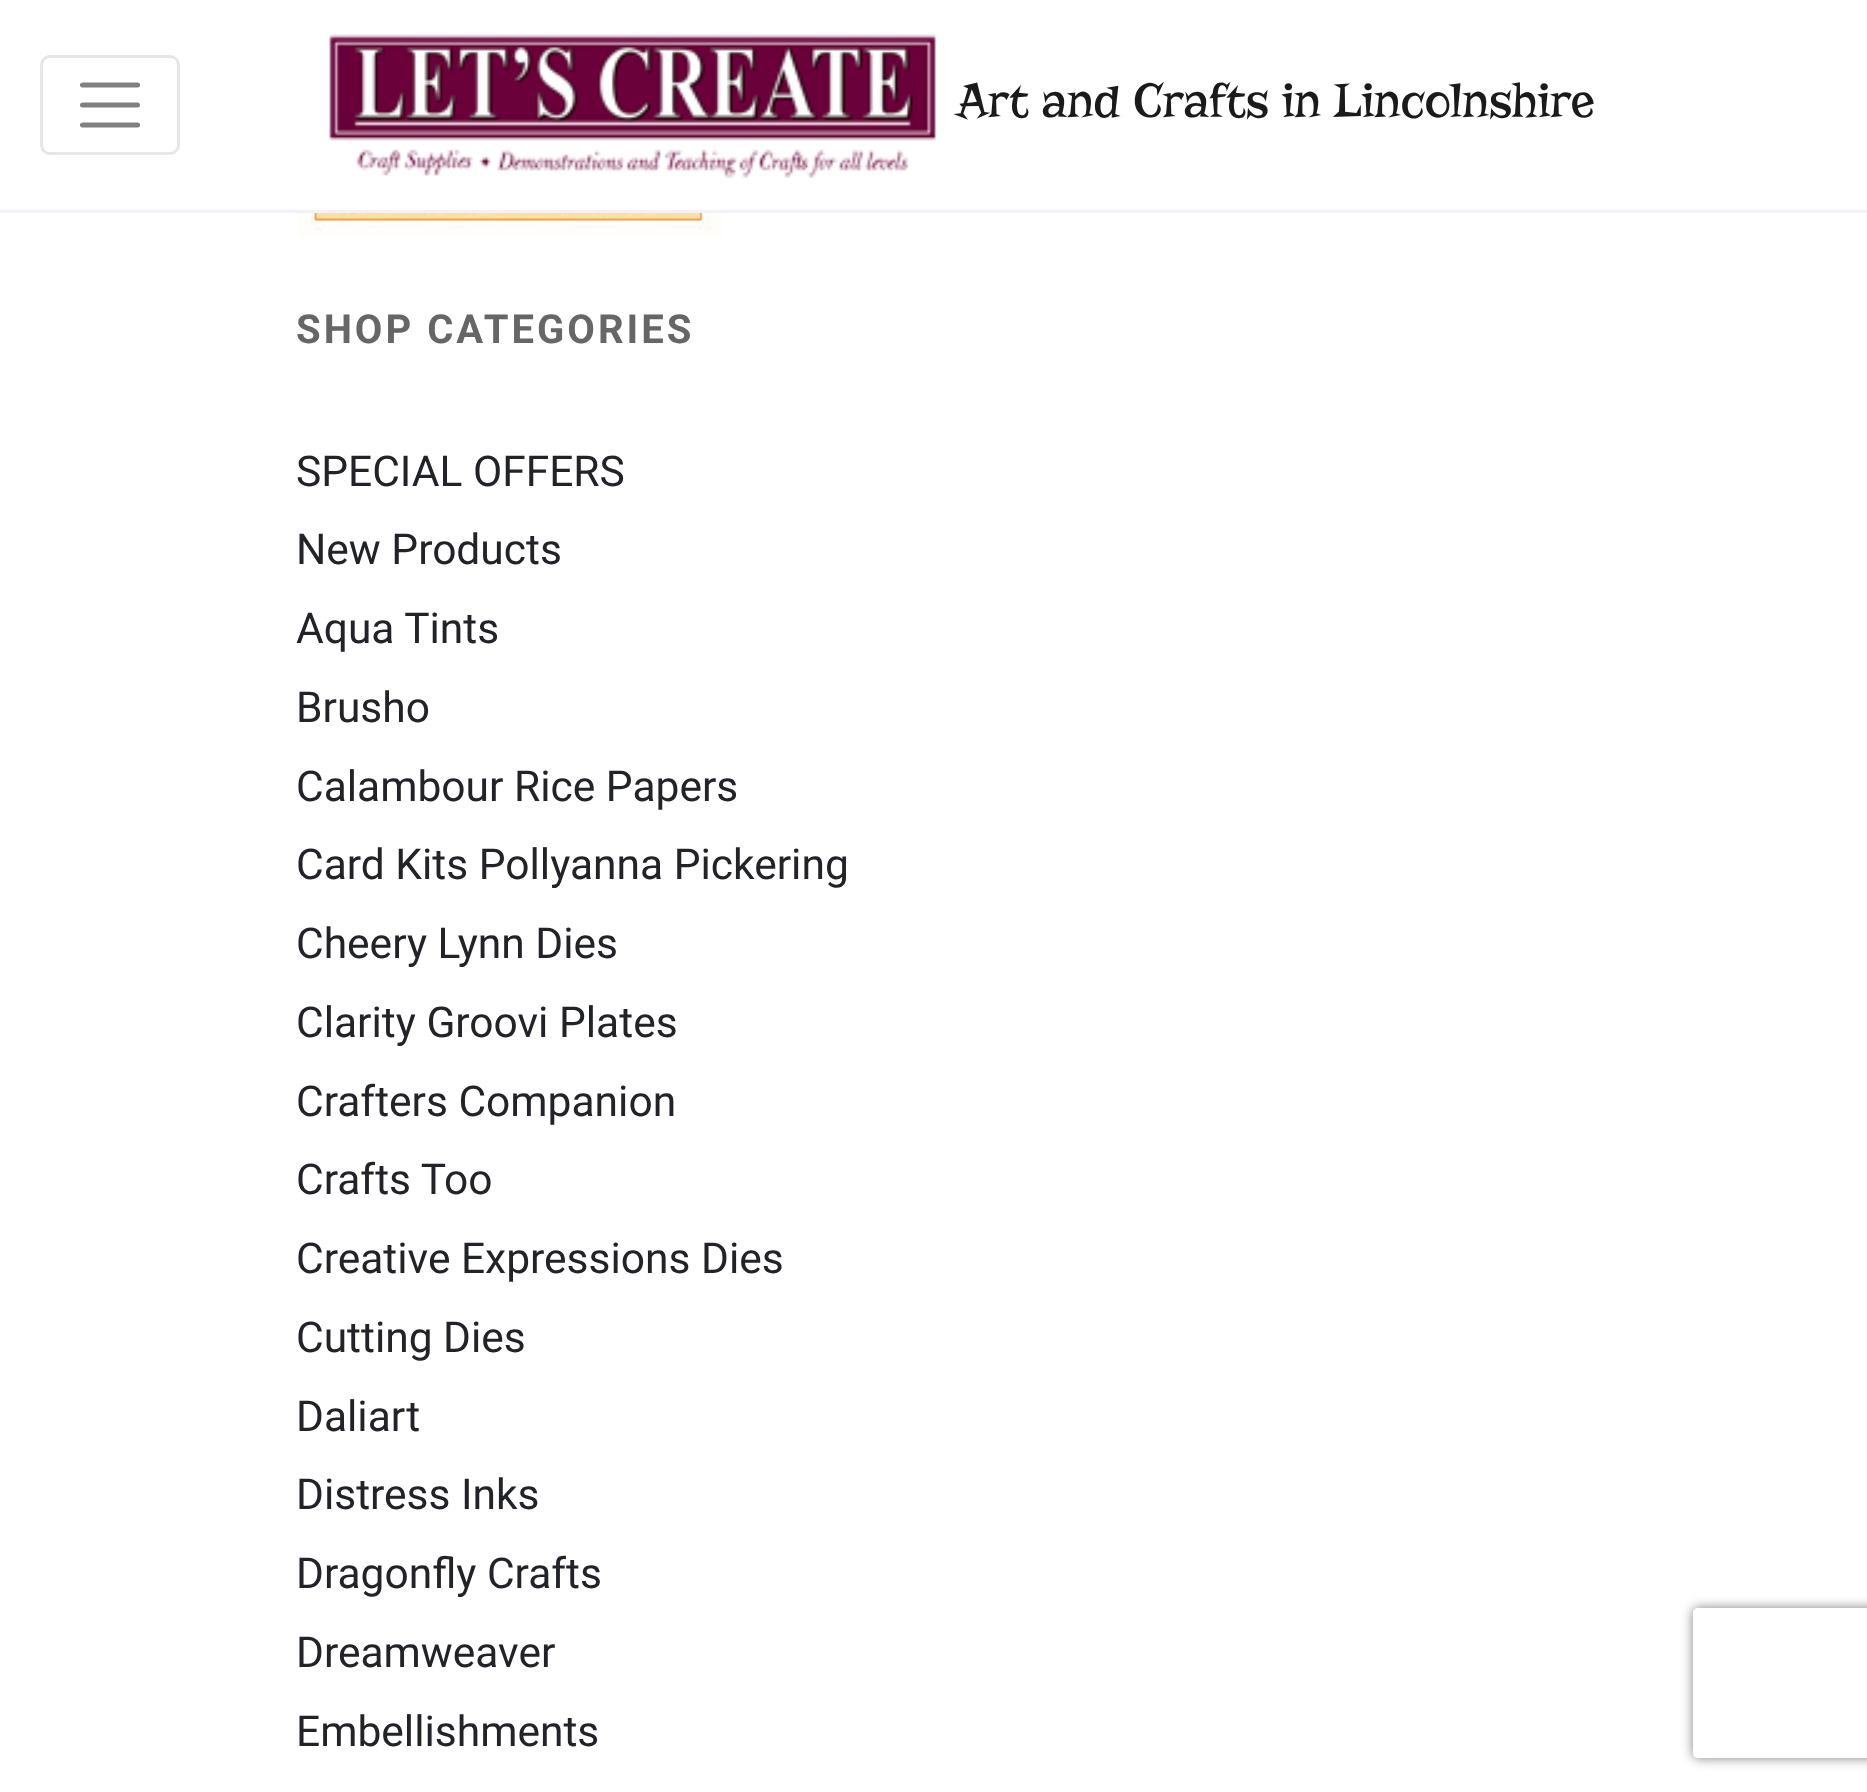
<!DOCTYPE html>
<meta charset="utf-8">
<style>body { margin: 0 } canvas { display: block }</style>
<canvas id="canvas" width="1867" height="1792"></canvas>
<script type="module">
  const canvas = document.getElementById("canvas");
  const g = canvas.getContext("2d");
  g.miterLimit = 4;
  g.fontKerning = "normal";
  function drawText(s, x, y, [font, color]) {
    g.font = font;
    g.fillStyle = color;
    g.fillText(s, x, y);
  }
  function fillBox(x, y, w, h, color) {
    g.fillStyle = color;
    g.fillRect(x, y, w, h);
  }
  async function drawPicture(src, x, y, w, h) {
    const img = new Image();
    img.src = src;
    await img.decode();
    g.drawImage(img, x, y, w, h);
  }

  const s1 = ["50px Risque", "#1A1A1A"];
  const s2 = ["bold 40px Roboto", "#666666"];
  const s3 = ["42.5px Roboto", "#222328"];

  fillBox(0, 0, 1867, 1792, "#FFFFFF");
  fillBox(0, 210, 1867, 3, "#F0F2F7");
  g.beginPath();
  g.roundRect(41.5, 56.5, 137, 97, 8.5);
  g.strokeStyle = "#E6E6E6";
  g.lineWidth = 3;
  g.stroke();
  g.beginPath();
  g.moveTo(82.5, 85);
  g.lineTo(137.5, 85);
  g.moveTo(82.5, 105);
  g.lineTo(137.5, 105);
  g.moveTo(82.5, 125);
  g.lineTo(137.5, 125);
  g.strokeStyle = "#808080";
  g.lineWidth = 5;
  g.lineCap = "round";
  g.stroke();
  await drawPicture("pic1.png", 329, 34, 607, 145);
  drawText("Art and Crafts in Lincolnshire", 956, 117, s1);
  await drawPicture("pic2.png", 298, 213, 424, 24);
  g.letterSpacing = "3px";
  drawText("SHOP CATEGORIES", 296, 343, s2);
  g.letterSpacing = "0px";
  drawText("SPECIAL OFFERS", 296, 486, s3);
  drawText("New Products", 296, 564, s3);
  drawText("Aqua Tints", 296, 643, s3);
  drawText("Brusho", 296, 722, s3);
  drawText("Calambour Rice Papers", 296, 801, s3);
  drawText("Card Kits Pollyanna Pickering", 296, 879, s3);
  drawText("Cheery Lynn Dies", 296, 958, s3);
  drawText("Clarity Groovi Plates", 296, 1037, s3);
  drawText("Crafters Companion", 296, 1116, s3);
  drawText("Crafts Too", 296, 1194, s3);
  drawText("Creative Expressions Dies", 296, 1273, s3);
  drawText("Cutting Dies", 296, 1352, s3);
  drawText("Daliart", 296, 1431, s3);
  drawText("Distress Inks", 296, 1509, s3);
  drawText("Dragonfly Crafts", 296, 1588, s3);
  drawText("Dreamweaver", 296, 1667, s3);
  drawText("Embellishments", 296, 1746, s3);
  g.save();
  g.beginPath();
  g.moveTo(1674, 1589);
  g.lineTo(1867, 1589);
  g.lineTo(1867, 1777);
  g.lineTo(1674, 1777);
  g.closePath();
  g.moveTo(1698, 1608);
  g.lineTo(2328, 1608);
  g.bezierCurveTo(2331, 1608, 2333, 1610, 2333, 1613);
  g.lineTo(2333, 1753);
  g.bezierCurveTo(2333, 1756, 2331, 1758, 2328, 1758);
  g.lineTo(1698, 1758);
  g.bezierCurveTo(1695, 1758, 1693, 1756, 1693, 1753);
  g.lineTo(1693, 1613);
  g.bezierCurveTo(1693, 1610, 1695, 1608, 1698, 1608);
  g.closePath();
  g.clip("evenodd");
  g.fillStyle = "#808080";
  g.filter = "blur(6px)";
  g.beginPath();
  g.roundRect(1693, 1608, 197, 150, 5);
  g.fill();
  g.filter = "none";
  g.restore();
</script>
